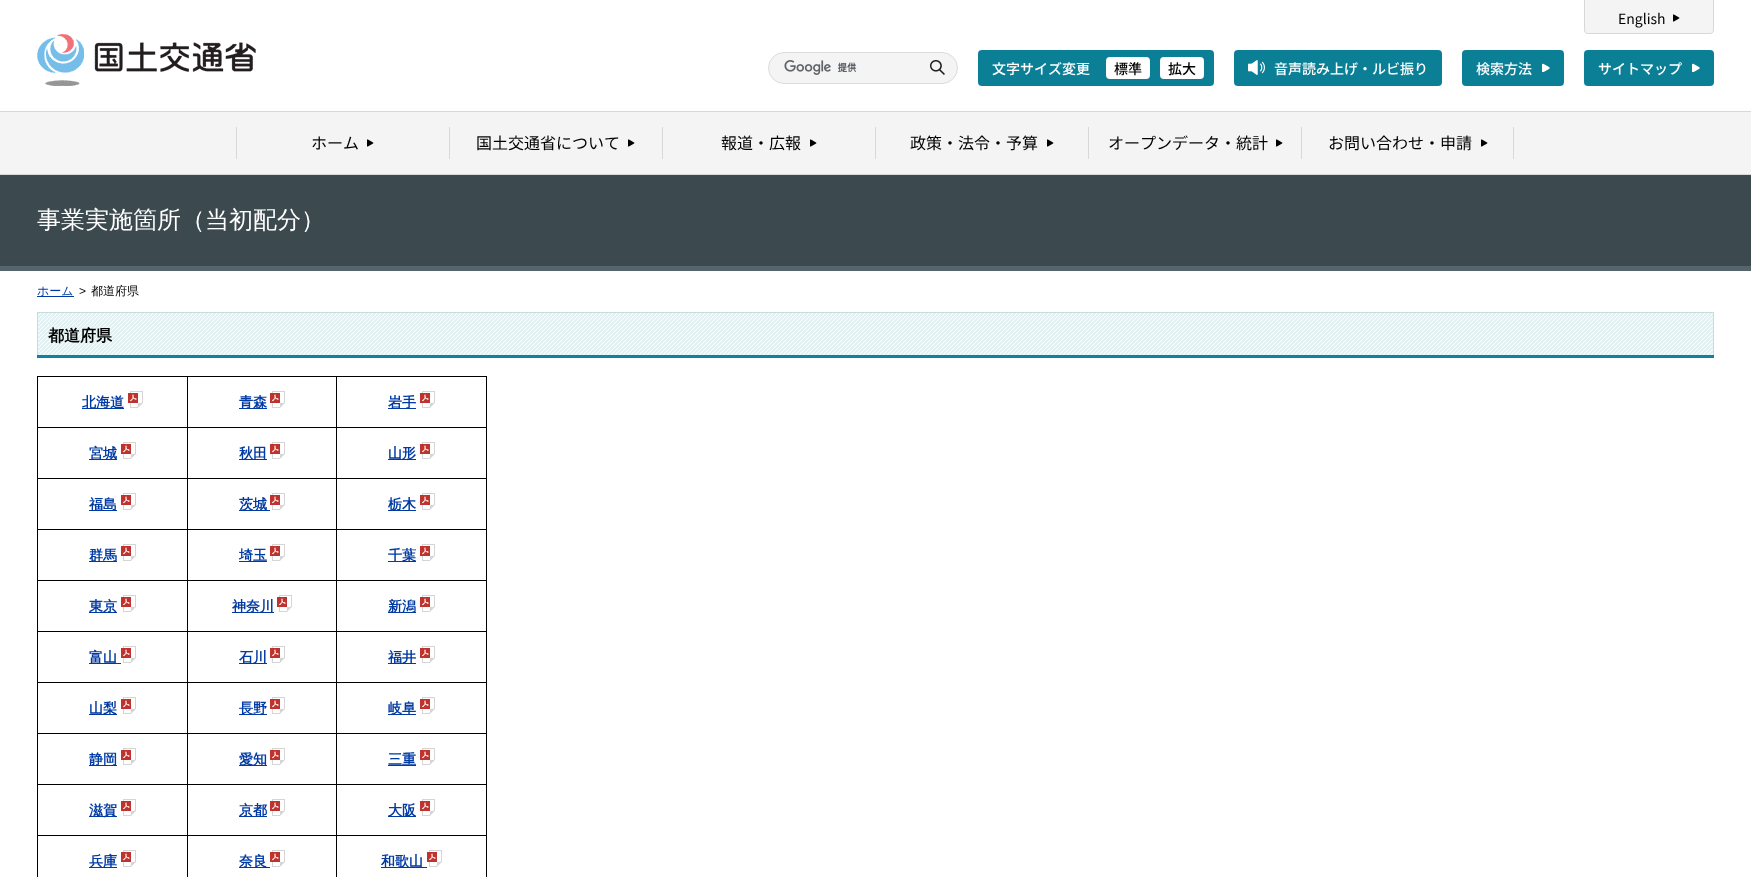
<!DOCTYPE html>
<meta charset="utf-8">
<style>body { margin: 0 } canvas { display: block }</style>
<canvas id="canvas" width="1751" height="877"></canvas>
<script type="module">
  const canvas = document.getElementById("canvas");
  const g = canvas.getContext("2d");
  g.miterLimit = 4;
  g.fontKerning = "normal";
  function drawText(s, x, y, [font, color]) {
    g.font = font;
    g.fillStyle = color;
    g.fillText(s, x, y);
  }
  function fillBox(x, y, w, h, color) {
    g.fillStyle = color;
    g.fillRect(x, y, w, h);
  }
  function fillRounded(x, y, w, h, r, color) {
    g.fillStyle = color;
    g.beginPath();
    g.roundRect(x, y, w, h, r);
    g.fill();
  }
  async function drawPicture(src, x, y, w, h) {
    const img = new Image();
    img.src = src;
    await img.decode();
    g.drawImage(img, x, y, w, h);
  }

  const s1 = ["14px Noto Sans JP", "#000000"];
  const s2 = ["500 14px Noto Sans JP", "#FFFFFF"];
  const s3 = ["500 14px Noto Sans JP", "#000000"];
  const s4 = ["16px Noto Sans JP", "#000000"];
  const s5 = ["500 24px WenQuanYi Zen Hei", "#FFFFFF"];
  const s6 = ["500 12px WenQuanYi Zen Hei", "#013AA2"];
  const s7 = ["12px Liberation Sans", "#000000"];
  const s8 = ["500 12px WenQuanYi Zen Hei", "#000000"];
  const s9 = ["bold 16px WenQuanYi Zen Hei", "#000000"];
  const s10 = ["bold 14px WenQuanYi Zen Hei", "#013AA2"];

  fillBox(0, 0, 1751, 877, "#FFFFFF");
  await drawPicture("pic1.png", 37, 34, 219, 52);
  g.fillStyle = "#F4F4F4";
  g.beginPath();
  g.roundRect(1584, 0, 130, 34, [0, 0, 4, 4]);
  g.fill();
  g.fillStyle = "#D8D8D8";
  g.beginPath();
  g.moveTo(1584, 0);
  g.lineTo(1714, 0);
  g.lineTo(1714, 30);
  g.bezierCurveTo(1714, 32, 1712, 34, 1710, 34);
  g.lineTo(1588, 34);
  g.bezierCurveTo(1586, 34, 1584, 32, 1584, 30);
  g.closePath();
  g.moveTo(1585, 0);
  g.lineTo(1713, 0);
  g.lineTo(1713, 30);
  g.bezierCurveTo(1713, 32, 1712, 33, 1710, 33);
  g.lineTo(1588, 33);
  g.bezierCurveTo(1586, 33, 1585, 32, 1585, 30);
  g.closePath();
  g.fill("evenodd");
  drawText("English", 1618, 24, s1);
  await drawPicture("pic2.png", 1673, 14, 7, 8);
  g.fillStyle = "#F4F4F4";
  g.beginPath();
  g.roundRect(768.5, 52.5, 189, 31, 15.5);
  g.fill();
  g.strokeStyle = "#DCDCDC";
  g.stroke();
  await drawPicture("pic3.png", 784, 60, 73, 15);
  await drawPicture("pic4.png", 930, 60, 15, 15);
  fillRounded(978, 50, 236, 36, 4, "#0B7F96");
  drawText("文字サイズ変更", 992, 74, s2);
  fillRounded(1106, 57, 44, 22, 4, "#FFFFFF");
  drawText("標準", 1114, 74, s3);
  fillRounded(1160, 57, 44, 22, 4, "#FFFFFF");
  drawText("拡大", 1168, 74, s3);
  fillRounded(1234, 50, 208, 36, 4, "#0B7F96");
  await drawPicture("pic5.png", 1248, 60, 17, 15);
  drawText("音声読み上げ・ルビ振り", 1274, 74, s2);
  fillRounded(1462, 50, 102, 36, 4, "#0B7F96");
  drawText("検索方法", 1476, 74, s2);
  await drawPicture("pic6.png", 1542, 63, 8, 9);
  fillRounded(1584, 50, 130, 36, 4, "#0B7F96");
  drawText("サイトマップ", 1598, 74, s2);
  await drawPicture("pic6.png", 1692, 63, 8, 9);
  fillBox(0, 112, 1751, 62, "#F4F4F4");
  fillBox(0, 111, 1751, 1, "#D8D8D8");
  fillBox(0, 174, 1751, 1, "#D8D8D8");
  fillBox(236, 127, 1, 32, "#D8D8D8");
  drawText("ホーム", 311, 149, s4);
  await drawPicture("pic2.png", 367, 139, 7, 8);
  fillBox(449, 127, 1, 32, "#D8D8D8");
  drawText("国土交通省について", 476, 149, s4);
  await drawPicture("pic2.png", 628, 139, 7, 8);
  fillBox(662, 127, 1, 32, "#D8D8D8");
  drawText("報道・広報", 721, 149, s4);
  await drawPicture("pic2.png", 810, 139, 7, 8);
  fillBox(875, 127, 1, 32, "#D8D8D8");
  drawText("政策・法令・予算", 910, 149, s4);
  await drawPicture("pic2.png", 1047, 139, 7, 8);
  fillBox(1088, 127, 1, 32, "#D8D8D8");
  drawText("オープンデータ・統計", 1108, 149, s4);
  await drawPicture("pic2.png", 1276, 139, 7, 8);
  fillBox(1301, 127, 1, 32, "#D8D8D8");
  drawText("お問い合わせ・申請", 1328, 149, s4);
  await drawPicture("pic2.png", 1481, 139, 7, 8);
  fillBox(1513, 127, 1, 32, "#D8D8D8");
  fillBox(0, 175, 1751, 91, "#3C494F");
  fillBox(0, 266, 1751, 5, "#56646B");
  drawText("事業実施箇所（当初配分）", 37, 228, s5);
  fillBox(37, 296, 37, 1, "#013AA2");
  drawText("ホーム", 37, 295, s6);
  drawText(">", 79, 295, s7);
  drawText("都道府県", 91, 295, s8);
  fillBox(37, 355, 1677, 3, "#0D849D");
  await drawPicture("pic7.png", 38, 313, 1675, 42);
  fillBox(37, 312, 1677, 1, "#C6DCE0");
  fillBox(1713, 312, 1, 43, "#C6DCE0");
  fillBox(37, 312, 1, 43, "#C6DCE0");
  drawText("都道府県", 48, 341, s9);
  fillBox(336, 376, 151, 1, "#000000");
  fillBox(336, 427, 151, 1, "#000000");
  fillBox(336, 478, 151, 1, "#000000");
  fillBox(336, 529, 151, 1, "#000000");
  fillBox(336, 580, 151, 1, "#000000");
  fillBox(336, 631, 151, 1, "#000000");
  fillBox(336, 682, 151, 1, "#000000");
  fillBox(336, 733, 151, 1, "#000000");
  fillBox(336, 784, 151, 1, "#000000");
  fillBox(336, 835, 151, 1, "#000000");
  fillBox(336, 835, 1, 42, "#000000");
  fillBox(187, 835, 150, 1, "#000000");
  fillBox(336, 784, 1, 52, "#000000");
  fillBox(187, 784, 150, 1, "#000000");
  fillBox(336, 733, 1, 52, "#000000");
  fillBox(187, 733, 150, 1, "#000000");
  fillBox(336, 682, 1, 52, "#000000");
  fillBox(187, 682, 150, 1, "#000000");
  fillBox(336, 631, 1, 52, "#000000");
  fillBox(187, 631, 150, 1, "#000000");
  fillBox(336, 580, 1, 52, "#000000");
  fillBox(187, 580, 150, 1, "#000000");
  fillBox(336, 529, 1, 52, "#000000");
  fillBox(187, 529, 150, 1, "#000000");
  fillBox(336, 478, 1, 52, "#000000");
  fillBox(187, 478, 150, 1, "#000000");
  fillBox(336, 427, 1, 52, "#000000");
  fillBox(187, 427, 150, 1, "#000000");
  fillBox(336, 376, 1, 52, "#000000");
  fillBox(187, 376, 150, 1, "#000000");
  fillBox(187, 835, 1, 42, "#000000");
  fillBox(37, 835, 151, 1, "#000000");
  fillBox(187, 784, 1, 52, "#000000");
  fillBox(37, 784, 151, 1, "#000000");
  fillBox(187, 733, 1, 52, "#000000");
  fillBox(37, 733, 151, 1, "#000000");
  fillBox(187, 682, 1, 52, "#000000");
  fillBox(37, 682, 151, 1, "#000000");
  fillBox(187, 631, 1, 52, "#000000");
  fillBox(37, 631, 151, 1, "#000000");
  fillBox(187, 580, 1, 52, "#000000");
  fillBox(37, 580, 151, 1, "#000000");
  fillBox(187, 529, 1, 52, "#000000");
  fillBox(37, 529, 151, 1, "#000000");
  fillBox(187, 478, 1, 52, "#000000");
  fillBox(37, 478, 151, 1, "#000000");
  fillBox(187, 427, 1, 52, "#000000");
  fillBox(37, 427, 151, 1, "#000000");
  fillBox(187, 376, 1, 52, "#000000");
  fillBox(37, 376, 151, 1, "#000000");
  fillBox(37, 835, 1, 42, "#000000");
  fillBox(37, 784, 1, 52, "#000000");
  fillBox(37, 733, 1, 52, "#000000");
  fillBox(37, 682, 1, 52, "#000000");
  fillBox(37, 631, 1, 52, "#000000");
  fillBox(37, 580, 1, 52, "#000000");
  fillBox(37, 529, 1, 52, "#000000");
  fillBox(37, 478, 1, 52, "#000000");
  fillBox(37, 427, 1, 52, "#000000");
  fillBox(37, 376, 1, 52, "#000000");
  fillBox(82, 408, 42, 1, "#013AA2");
  drawText("北海道", 82, 407, s10);
  await drawPicture("pic8.png", 128, 391, 15, 17);
  fillBox(239, 408, 28, 1, "#013AA2");
  drawText("青森", 239, 407, s10);
  await drawPicture("pic8.png", 270, 391, 15, 17);
  fillBox(486, 835, 1, 42, "#000000");
  fillBox(486, 784, 1, 52, "#000000");
  fillBox(486, 733, 1, 52, "#000000");
  fillBox(486, 682, 1, 52, "#000000");
  fillBox(486, 631, 1, 52, "#000000");
  fillBox(486, 580, 1, 52, "#000000");
  fillBox(486, 529, 1, 52, "#000000");
  fillBox(486, 478, 1, 52, "#000000");
  fillBox(486, 427, 1, 52, "#000000");
  fillBox(486, 376, 1, 52, "#000000");
  fillBox(388, 408, 28, 1, "#013AA2");
  drawText("岩手", 388, 407, s10);
  await drawPicture("pic8.png", 420, 391, 15, 17);
  fillBox(89, 459, 28, 1, "#013AA2");
  drawText("宮城", 89, 458, s10);
  await drawPicture("pic8.png", 121, 442, 15, 17);
  fillBox(239, 459, 28, 1, "#013AA2");
  drawText("秋田", 239, 458, s10);
  await drawPicture("pic8.png", 270, 442, 15, 17);
  fillBox(388, 459, 28, 1, "#013AA2");
  drawText("山形", 388, 458, s10);
  await drawPicture("pic8.png", 420, 442, 15, 17);
  fillBox(89, 510, 28, 1, "#013AA2");
  drawText("福島", 89, 509, s10);
  await drawPicture("pic8.png", 121, 493, 15, 17);
  fillBox(239, 510, 31, 1, "#013AA2");
  drawText("茨城", 239, 509, s10);
  await drawPicture("pic8.png", 270, 493, 15, 17);
  fillBox(388, 510, 28, 1, "#013AA2");
  drawText("栃木", 388, 509, s10);
  await drawPicture("pic8.png", 420, 493, 15, 17);
  fillBox(89, 561, 28, 1, "#013AA2");
  drawText("群馬", 89, 560, s10);
  await drawPicture("pic8.png", 121, 544, 15, 17);
  fillBox(239, 561, 28, 1, "#013AA2");
  drawText("埼玉", 239, 560, s10);
  await drawPicture("pic8.png", 270, 544, 15, 17);
  fillBox(388, 561, 28, 1, "#013AA2");
  drawText("千葉", 388, 560, s10);
  await drawPicture("pic8.png", 420, 544, 15, 17);
  fillBox(89, 612, 28, 1, "#013AA2");
  drawText("東京", 89, 611, s10);
  await drawPicture("pic8.png", 121, 595, 15, 17);
  fillBox(232, 612, 42, 1, "#013AA2");
  drawText("神奈川", 232, 611, s10);
  await drawPicture("pic8.png", 277, 595, 15, 17);
  fillBox(388, 612, 28, 1, "#013AA2");
  drawText("新潟", 388, 611, s10);
  await drawPicture("pic8.png", 420, 595, 15, 17);
  fillBox(89, 663, 32, 1, "#013AA2");
  drawText("富山", 89, 662, s10);
  await drawPicture("pic8.png", 121, 646, 15, 17);
  fillBox(239, 663, 28, 1, "#013AA2");
  drawText("石川", 239, 662, s10);
  await drawPicture("pic8.png", 270, 646, 15, 17);
  fillBox(388, 663, 28, 1, "#013AA2");
  drawText("福井", 388, 662, s10);
  await drawPicture("pic8.png", 420, 646, 15, 17);
  fillBox(89, 714, 28, 1, "#013AA2");
  drawText("山梨", 89, 713, s10);
  await drawPicture("pic8.png", 121, 697, 15, 17);
  fillBox(239, 714, 28, 1, "#013AA2");
  drawText("長野", 239, 713, s10);
  await drawPicture("pic8.png", 270, 697, 15, 17);
  fillBox(388, 714, 28, 1, "#013AA2");
  drawText("岐阜", 388, 713, s10);
  await drawPicture("pic8.png", 420, 697, 15, 17);
  fillBox(89, 765, 28, 1, "#013AA2");
  drawText("静岡", 89, 764, s10);
  await drawPicture("pic8.png", 121, 748, 15, 17);
  fillBox(239, 765, 28, 1, "#013AA2");
  drawText("愛知", 239, 764, s10);
  await drawPicture("pic8.png", 270, 748, 15, 17);
  drawText("三重", 388, 764, s10);
  fillBox(388, 765, 28, 1, "#013AA2");
  await drawPicture("pic8.png", 420, 748, 15, 17);
  fillBox(89, 816, 28, 1, "#013AA2");
  drawText("滋賀", 89, 815, s10);
  await drawPicture("pic8.png", 121, 799, 15, 17);
  fillBox(239, 816, 28, 1, "#013AA2");
  drawText("京都", 239, 815, s10);
  await drawPicture("pic8.png", 270, 799, 15, 17);
  fillBox(388, 816, 28, 1, "#013AA2");
  drawText("大阪", 388, 815, s10);
  await drawPicture("pic8.png", 420, 799, 15, 17);
  fillBox(89, 867, 28, 1, "#013AA2");
  drawText("兵庫", 89, 866, s10);
  await drawPicture("pic8.png", 121, 850, 15, 17);
  fillBox(239, 867, 31, 1, "#013AA2");
  drawText("奈良", 239, 866, s10);
  await drawPicture("pic8.png", 270, 850, 15, 17);
  fillBox(381, 867, 46, 1, "#013AA2");
  drawText("和歌山", 381, 866, s10);
  await drawPicture("pic8.png", 427, 850, 15, 17);
</script>
